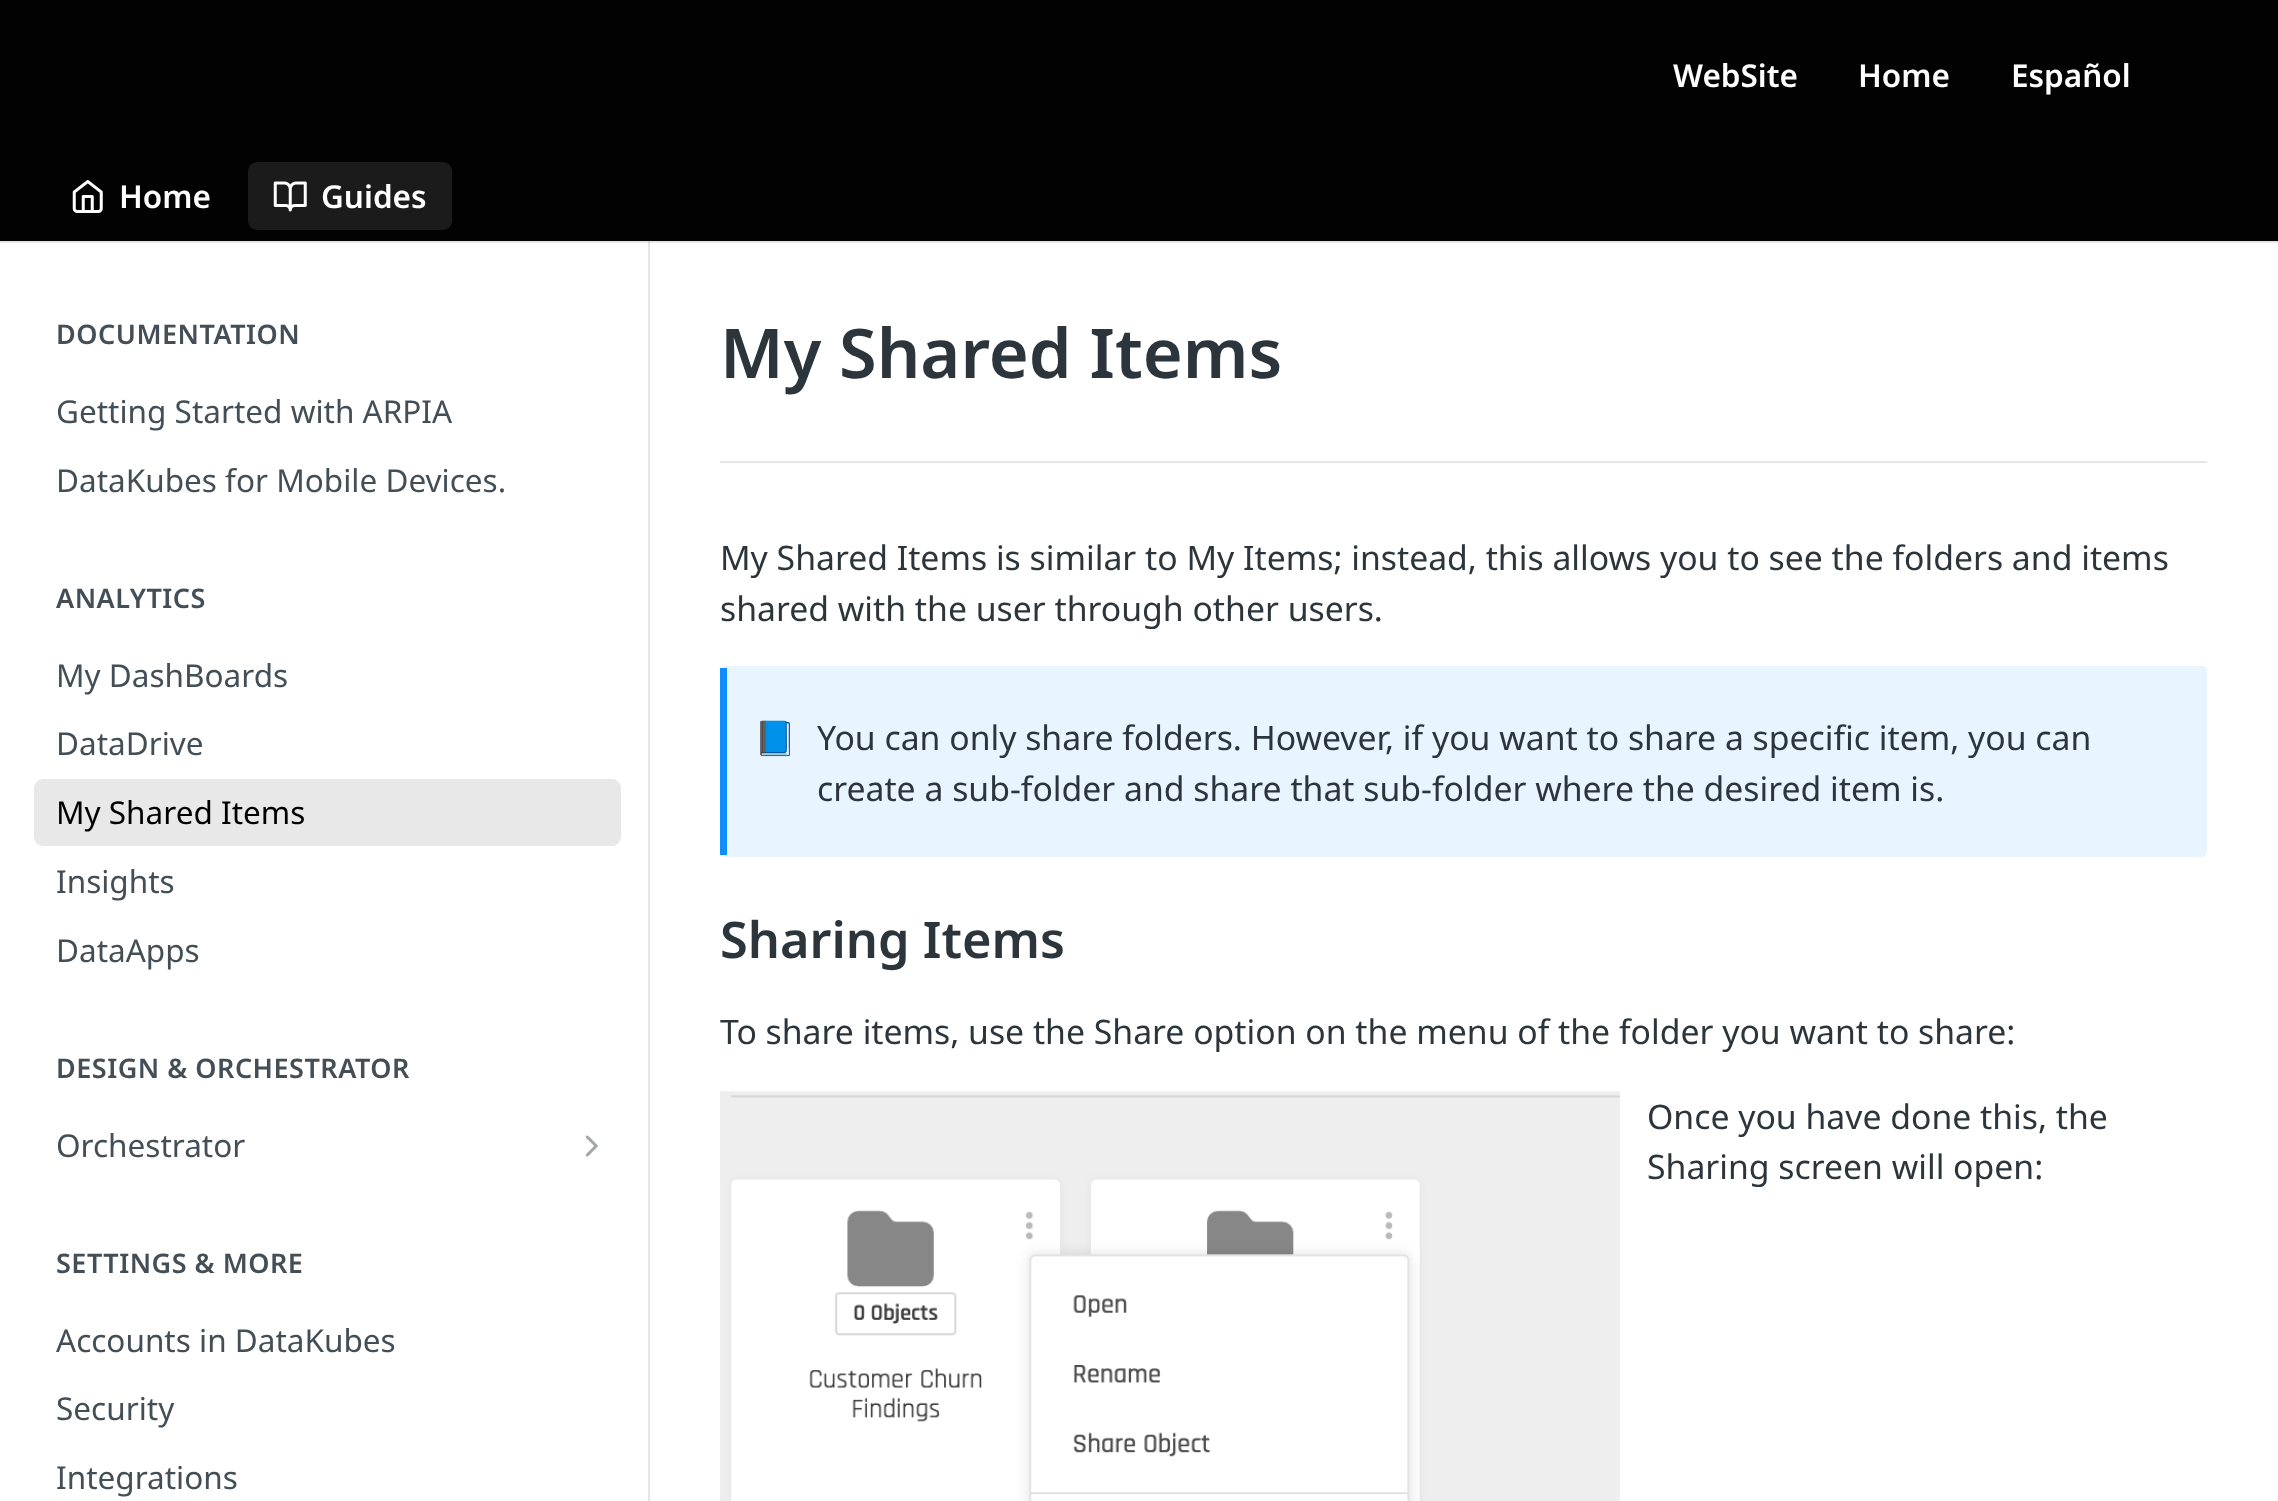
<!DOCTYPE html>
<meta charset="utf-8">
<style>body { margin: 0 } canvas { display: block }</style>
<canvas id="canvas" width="2278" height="1501"></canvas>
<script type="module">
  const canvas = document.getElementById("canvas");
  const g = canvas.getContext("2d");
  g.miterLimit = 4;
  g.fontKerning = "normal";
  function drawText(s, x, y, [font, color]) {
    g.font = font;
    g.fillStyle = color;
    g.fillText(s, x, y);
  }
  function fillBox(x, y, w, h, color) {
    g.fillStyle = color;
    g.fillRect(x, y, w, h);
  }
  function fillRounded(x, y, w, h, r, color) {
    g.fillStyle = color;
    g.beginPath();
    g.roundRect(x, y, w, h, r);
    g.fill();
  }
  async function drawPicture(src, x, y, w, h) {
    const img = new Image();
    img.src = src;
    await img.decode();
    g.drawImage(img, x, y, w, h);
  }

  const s1 = ["600 31.5px Noto Sans", "#FFFFFF"];
  const s2 = ["600 27px Noto Sans", "#434E56"];
  const s3 = ["31.5px Noto Sans", "#434E56"];
  const s4 = ["31.5px Noto Sans", "#000000"];
  const s5 = ["600 68.5px Noto Sans", "#2B353B"];
  const s6 = ["33.75px Noto Sans", "#2B353B"];
  const s7 = ["33.75px Noto Color Emoji", "#2B353B"];
  const s8 = ["600 50.5px Noto Sans", "#2B353B"];

  fillBox(0, 0, 2278, 1501, "#FFFFFF");
  g.fillStyle = "#E6E6E6";
  g.beginPath();
  g.moveTo(2, 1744);
  g.lineTo(650, 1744);
  g.lineTo(650, 241);
  g.lineTo(648, 241);
  g.lineTo(648, 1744);
  g.closePath();
  g.fill();
  fillBox(0, 241, 2278, 2, "rgba(0, 0, 0, 0.1)");
  fillBox(0, 0, 2278, 241, "#020202");
  drawText("WebSite", 1673, 87, s1);
  drawText("Home", 1858, 87, s1);
  drawText("Español", 2011, 87, s1);
  await drawPicture("pic1.png", 72, 180, 31, 33);
  drawText("Home", 119, 208, s1);
  fillRounded(248, 162, 204, 68, 9, "#1B1B1B");
  await drawPicture("pic2.png", 273, 181, 34, 31);
  drawText("Guides", 321, 208, s1);
  g.letterSpacing = "0.5px";
  drawText("DOCUMENTATION", 56, 344, s2);
  g.letterSpacing = "0px";
  drawText("Getting Started with ARPIA", 56, 423, s3);
  drawText("DataKubes for Mobile Devices.", 56, 492, s3);
  g.letterSpacing = "0.5px";
  drawText("ANALYTICS", 56, 608, s2);
  g.letterSpacing = "0px";
  drawText("My DashBoards", 56, 687, s3);
  drawText("DataDrive", 56, 755, s3);
  fillRounded(34, 779, 587, 67, 9, "#E8E8E8");
  drawText("My Shared Items", 56, 824, s4);
  drawText("Insights", 56, 893, s3);
  drawText("DataApps", 56, 962, s3);
  g.letterSpacing = "0.5px";
  drawText("DESIGN & ORCHESTRATOR", 56, 1078, s2);
  g.letterSpacing = "0px";
  drawText("Orchestrator", 56, 1157, s3);
  await drawPicture("pic3.png", 585, 1135, 13, 22);
  g.letterSpacing = "0.5px";
  drawText("SETTINGS & MORE", 56, 1273, s2);
  g.letterSpacing = "0px";
  drawText("Accounts in DataKubes", 56, 1352, s3);
  drawText("Security", 56, 1420, s3);
  drawText("Integrations", 56, 1489, s3);
  fillBox(720, 461, 1487, 2, "#E6E6E6");
  drawText("My Shared Items", 720, 378, s5);
  drawText("My Shared Items is similar to My Items; instead, this allows you to see the folders and items", 720, 570, s6);
  drawText("shared with the user through other users.", 720, 621, s6);
  fillRounded(720, 666, 1487, 191, 5, "#E8F4FF");
  fillBox(720, 668, 7, 187, "#118CFD");
  drawText("📘", 754, 750, s7);
  drawText("You can only share folders. However, if you want to share a specific item, you can", 817, 750, s6);
  drawText("create a sub-folder and share that sub-folder where the desired item is.", 817, 801, s6);
  drawText("Sharing Items", 720, 958, s8);
  drawText("To share items, use the Share option on the menu of the folder you want to share:", 720, 1044, s6);
  await drawPicture("pic4.png", 720, 1091, 900, 410);
  drawText("Once you have done this, the", 1647, 1129, s6);
  drawText("Sharing screen will open:", 1647, 1179, s6);
</script>
